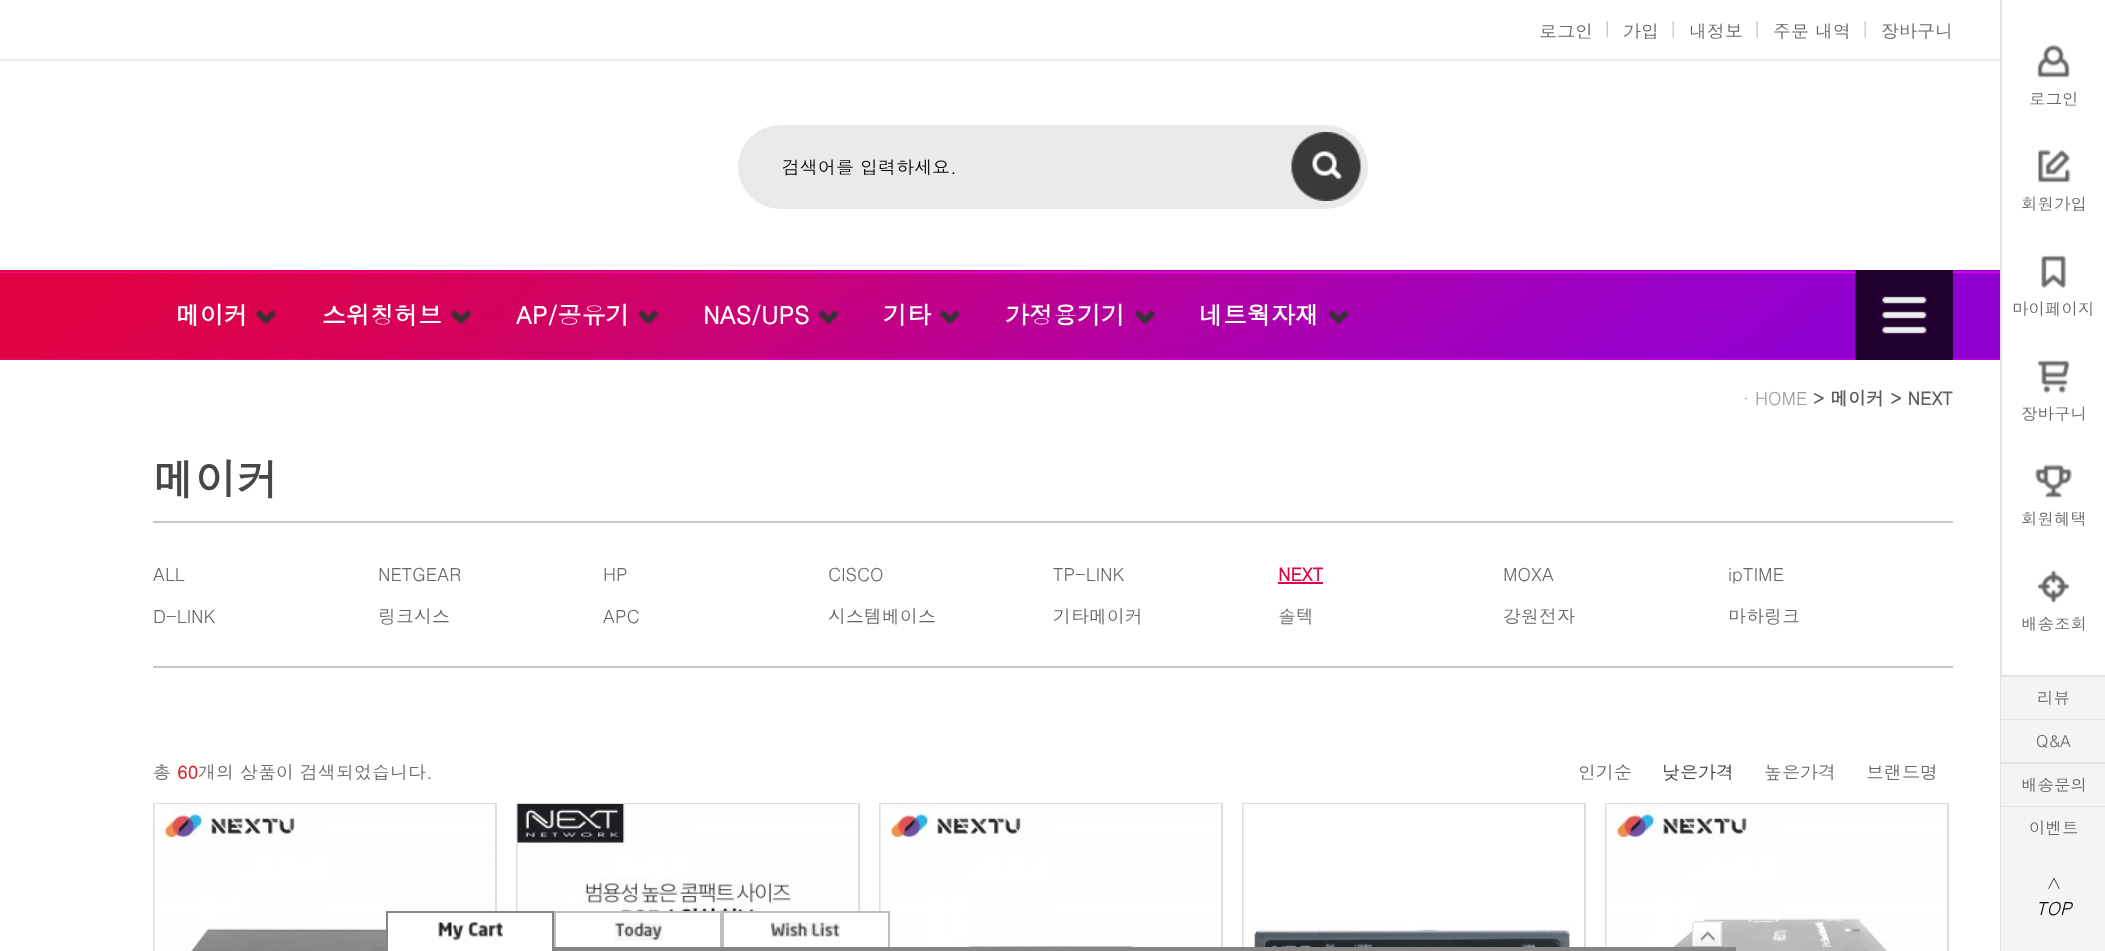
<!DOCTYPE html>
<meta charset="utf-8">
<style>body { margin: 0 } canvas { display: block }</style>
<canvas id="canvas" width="2105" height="951"></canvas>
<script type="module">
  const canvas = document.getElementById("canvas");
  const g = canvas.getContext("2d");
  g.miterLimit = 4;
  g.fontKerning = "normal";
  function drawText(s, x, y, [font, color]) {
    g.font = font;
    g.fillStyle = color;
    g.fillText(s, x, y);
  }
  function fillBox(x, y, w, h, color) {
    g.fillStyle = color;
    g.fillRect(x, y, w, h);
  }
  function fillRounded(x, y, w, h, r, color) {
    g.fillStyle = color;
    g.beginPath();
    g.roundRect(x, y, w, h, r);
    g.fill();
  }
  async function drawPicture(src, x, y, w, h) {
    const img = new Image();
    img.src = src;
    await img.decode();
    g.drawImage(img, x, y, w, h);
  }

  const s1 = ["18px Dotum", "#666666"];
  const s2 = ["18px Dotum", "#000000"];
  const s3 = ["bold 24px Dotum", "#FFFFFF"];
  const s4 = ["18px Dotum", "#999999"];
  const s5 = ["bold 18px Dotum", "#5D5D5D"];
  const s6 = ["bold 42px Dotum", "#474747"];
  const s7 = ["bold 18px Dotum", "#DF0346"];
  const s8 = ["bold 18px Dotum", "#D72A2A"];
  const s9 = ["18px Dotum", "#333333"];
  const s10 = ["16.5px Dotum", "#666666"];
  const s11 = ["italic 18px Dotum", "#000000"];

  fillBox(0, 0, 2105, 951, "#FFFFFF");
  fillBox(0, 59, 2000, 2, "#EEEEEE");
  await drawPicture("pic1.png", 1606, 21, 2, 17);
  drawText("로그인", 1539, 38, s1);
  await drawPicture("pic1.png", 1672, 21, 2, 17);
  drawText("가입", 1623, 38, s1);
  await drawPicture("pic1.png", 1756, 21, 2, 17);
  drawText("내정보", 1689, 38, s1);
  await drawPicture("pic1.png", 1864, 21, 2, 17);
  drawText("주문 내역", 1773, 38, s1);
  drawText("장바구니", 1881, 38, s1);
  fillRounded(738, 125, 630, 84, 42, "#EAEAEA");
  drawText("검색어를 입력하세요.", 782, 174, s2);
  await drawPicture("pic2.png", 1291, 132, 70, 69);
  await drawPicture("pic3.png", 0, 270, 2000, 90);
  drawText("메이커", 176, 324, s3);
  await drawPicture("pic4.png", 255, 310, 21, 14);
  drawText("스위칭허브", 322, 324, s3);
  await drawPicture("pic5.png", 450, 310, 21, 14);
  drawText("AP/공유기", 516, 324, s3);
  await drawPicture("pic6.png", 637, 310, 22, 14);
  drawText("NAS/UPS", 703, 324, s3);
  await drawPicture("pic7.png", 817, 310, 22, 14);
  drawText("기타", 883, 324, s3);
  await drawPicture("pic8.png", 939, 310, 21, 14);
  drawText("가정용기기", 1005, 324, s3);
  await drawPicture("pic9.png", 1134, 310, 21, 14);
  drawText("네트웍자재", 1199, 324, s3);
  await drawPicture("pic10.png", 1327, 310, 22, 14);
  await drawPicture("pic11.png", 1855, 270, 98, 90);
  drawText("· HOME", 1743, 405, s4);
  drawText("> 메이커 > NEXT", 1813, 405, s5);
  drawText("메이커", 153, 495, s6);
  fillBox(153, 521, 1800, 2, "#C7C7C7");
  fillBox(153, 666, 1800, 2, "#C7C7C7");
  drawText("ALL", 153, 581, s1);
  drawText("NETGEAR", 378, 581, s1);
  drawText("HP", 603, 581, s1);
  drawText("CISCO", 828, 581, s1);
  drawText("TP-LINK", 1053, 581, s1);
  drawText("NEXT", 1278, 581, s7);
  fillBox(1278, 582, 45, 2, "#DF0346");
  drawText("MOXA", 1503, 581, s1);
  drawText("ipTIME", 1728, 581, s1);
  drawText("D-LINK", 153, 623, s1);
  drawText("링크시스", 378, 623, s1);
  drawText("APC", 603, 623, s1);
  drawText("시스템베이스", 828, 623, s1);
  drawText("기타메이커", 1053, 623, s1);
  drawText("솔텍", 1278, 623, s1);
  drawText("강원전자", 1503, 623, s1);
  drawText("마하링크", 1728, 623, s1);
  drawText("총", 153, 779, s1);
  drawText("60", 177, 779, s8);
  drawText("개의 상품이 검색되었습니다.", 198, 779, s1);
  drawText("인기순", 1578, 779, s1);
  drawText("낮은가격", 1662, 779, s9);
  drawText("높은가격", 1764, 779, s1);
  drawText("브랜드명", 1866, 779, s1);
  g.strokeStyle = "#DDDDDD";
  g.lineWidth = 2;
  g.strokeRect(154, 804, 342, 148);
  await drawPicture("pic12.png", 154, 804, 341, 147);
  g.strokeRect(517, 804, 342, 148);
  await drawPicture("pic13.png", 517, 804, 341, 107);
  g.strokeRect(880, 804, 342, 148);
  await drawPicture("pic14.png", 880, 804, 341, 143);
  g.strokeRect(1243, 804, 342, 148);
  await drawPicture("pic15.png", 1243, 804, 341, 143);
  g.strokeRect(1606, 804, 342, 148);
  await drawPicture("pic16.png", 1606, 804, 341, 147);
  fillBox(371, 947, 1365, 4, "#858585");
  fillBox(388, 913, 164, 38, "#FFFFFF");
  fillBox(386, 911, 168, 2, "#858585");
  fillBox(552, 911, 2, 40, "#858585");
  fillBox(386, 911, 2, 40, "#858585");
  await drawPicture("pic17.png", 438, 922, 65, 19);
  await drawPicture("pic18.png", 614, 922, 48, 19);
  fillBox(554, 911, 336, 2, "#BEBEBE");
  fillBox(720, 911, 4, 36, "#BEBEBE");
  fillBox(554, 911, 2, 36, "#BEBEBE");
  fillBox(858, 913, 23, 34, "#FFFFFF");
  await drawPicture("pic19.png", 771, 922, 69, 15);
  fillBox(888, 911, 2, 36, "#BEBEBE");
  await drawPicture("pic20.png", 1692, 921, 31, 25);
  fillBox(2000, 0, 2, 951, "#E3E3E3");
  await drawPicture("pic21.png", 2036, 44, 35, 34);
  drawText("로그인", 2029, 105, s10);
  await drawPicture("pic22.png", 2038, 149, 33, 34);
  drawText("회원가입", 2021, 210, s10);
  await drawPicture("pic23.png", 2041, 255, 25, 34);
  drawText("마이페이지", 2012, 315, s10);
  await drawPicture("pic24.png", 2037, 360, 33, 34);
  drawText("장바구니", 2021, 420, s10);
  await drawPicture("pic25.png", 2035, 464, 37, 34);
  drawText("회원혜택", 2021, 525, s10);
  await drawPicture("pic26.png", 2037, 570, 33, 33);
  drawText("배송조회", 2021, 630, s10);
  fillBox(2001, 675, 104, 2, "#E3E3E3");
  fillBox(2001, 719, 104, 1, "#E3E3E3");
  fillBox(2001, 677, 104, 42, "#F4F4F4");
  drawText("리뷰", 2037, 704, s10);
  fillBox(2001, 762, 104, 2, "#E3E3E3");
  fillBox(2001, 720, 104, 42, "#F4F4F4");
  drawText("Q&A", 2036, 747, s10);
  fillBox(2001, 806, 104, 1, "#E3E3E3");
  fillBox(2001, 764, 104, 42, "#F4F4F4");
  drawText("배송문의", 2021, 791, s10);
  fillBox(2001, 807, 104, 144, "#F4F4F4");
  drawText("이벤트", 2029, 834, s10);
  drawText("∧", 2045, 890, s2);
  drawText("TOP", 2036, 915, s11);
</script>
